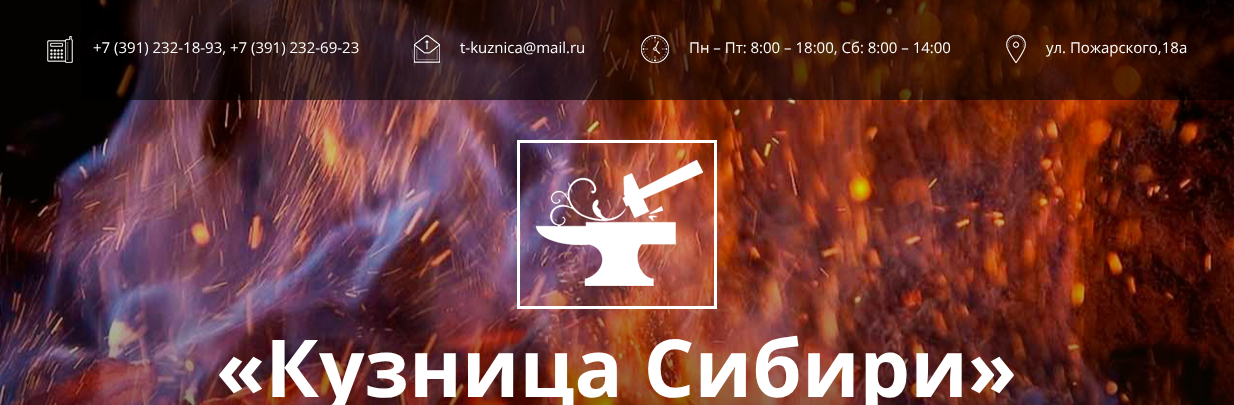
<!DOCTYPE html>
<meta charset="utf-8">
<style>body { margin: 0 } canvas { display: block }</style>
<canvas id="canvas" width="1234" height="405"></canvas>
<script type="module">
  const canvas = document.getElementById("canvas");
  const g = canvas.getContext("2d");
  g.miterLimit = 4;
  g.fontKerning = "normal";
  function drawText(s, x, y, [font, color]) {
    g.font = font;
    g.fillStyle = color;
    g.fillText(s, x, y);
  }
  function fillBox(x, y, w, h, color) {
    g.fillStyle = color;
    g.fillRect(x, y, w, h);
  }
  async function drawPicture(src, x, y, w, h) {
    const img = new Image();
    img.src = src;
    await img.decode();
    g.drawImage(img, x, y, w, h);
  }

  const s1 = ["15px Open Sans", "#FFFFFF"];
  const s2 = ["bold 80px Open Sans", "#FFFFFF"];

  fillBox(0, 0, 1234, 405, "#FFFFFF");
  await drawPicture("pic5.png", 0, 0, 1234, 405);
  fillBox(81, 0, 1153, 100, "rgba(0, 0, 0, 0.6)");
  await drawPicture("pic1.png", 47, 36, 26, 27);
  drawText("+7 (391) 232-18-93, +7 (391) 232-69-23", 93, 53, s1);
  await drawPicture("pic2.png", 414, 35, 26, 28);
  drawText("t-kuznica@mail.ru", 460, 53, s1);
  await drawPicture("pic3.png", 641, 35, 28, 28);
  drawText("Пн – Пт: 8:00 – 18:00, Сб: 8:00 – 14:00", 689, 53, s1);
  await drawPicture("pic4.png", 1006, 35, 20, 28);
  drawText("ул. Пожарского,18а", 1046, 53, s1);
  await drawPicture("pic6.png", 517, 140, 200, 169);
  drawText("«Кузница Сибири»", 216, 397, s2);
</script>
